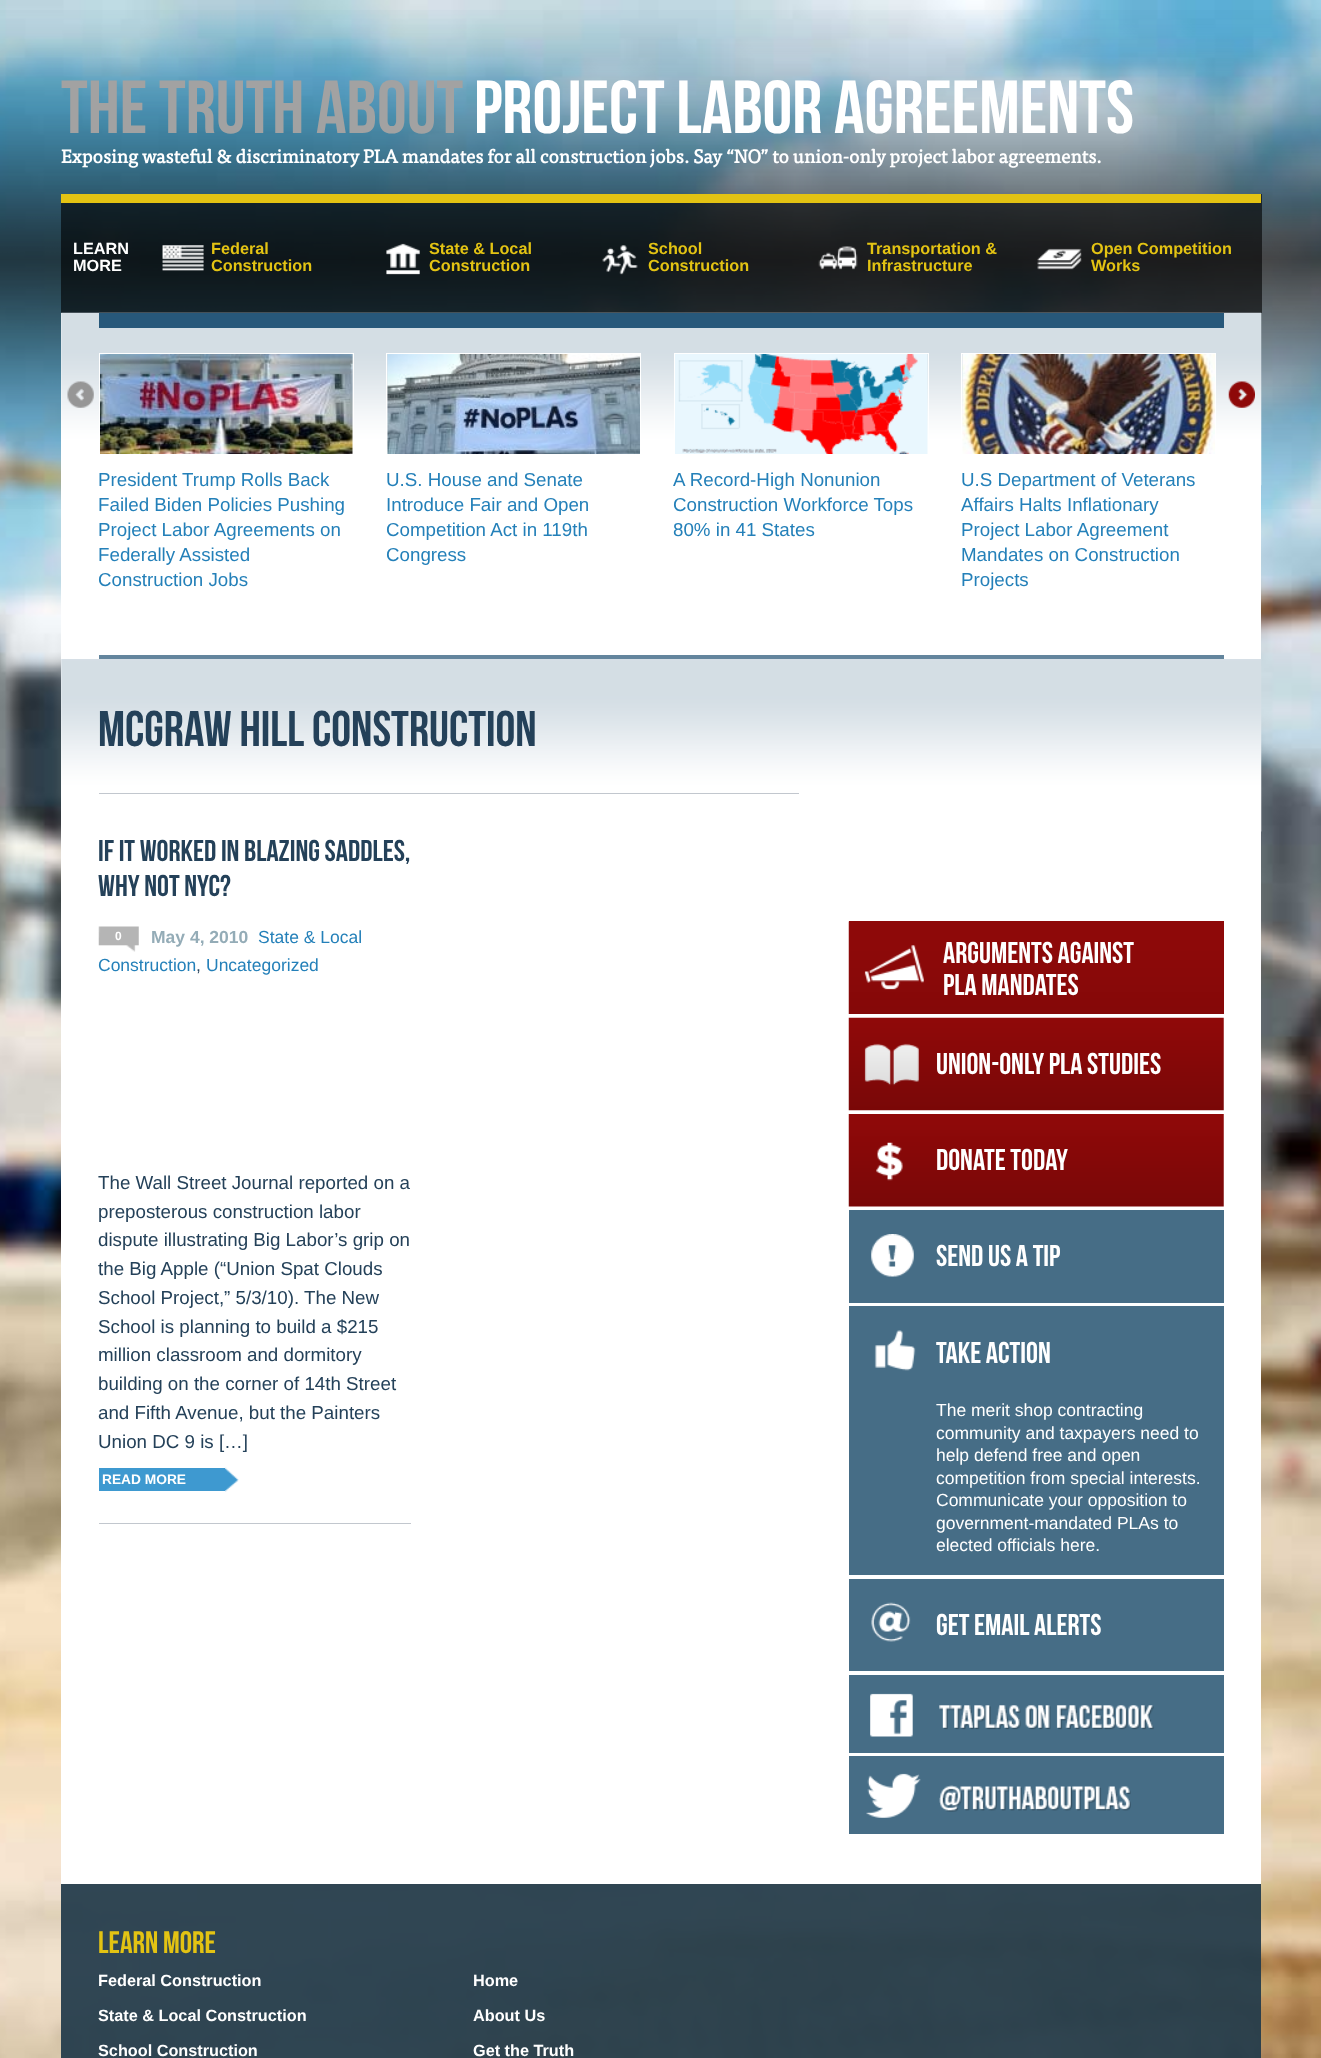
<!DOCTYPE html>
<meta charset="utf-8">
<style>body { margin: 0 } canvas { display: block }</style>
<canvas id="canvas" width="1321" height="2058"></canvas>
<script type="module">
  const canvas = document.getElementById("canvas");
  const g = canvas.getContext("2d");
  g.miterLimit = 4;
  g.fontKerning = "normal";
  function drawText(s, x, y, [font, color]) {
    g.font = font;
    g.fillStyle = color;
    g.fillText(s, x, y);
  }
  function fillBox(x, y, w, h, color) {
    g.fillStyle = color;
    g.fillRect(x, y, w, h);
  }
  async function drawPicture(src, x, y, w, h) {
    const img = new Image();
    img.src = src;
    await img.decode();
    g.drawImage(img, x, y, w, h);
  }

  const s1 = ["75px Bebas Neue", "#A2A2A2"];
  const s2 = ["75px Bebas Neue", "#FFFFFF"];
  const s3 = ["bold 18.75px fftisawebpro", "#FFFFFF"];
  const s4 = ["bold 16.25px Liberation Sans", "#FFFFFF"];
  const s5 = ["bold 16.25px Liberation Sans", "#E3C313"];
  const s6 = ["18.75px Liberation Sans", "#2480B9"];
  const s7 = ["50px Bebas Neue", "#244159"];
  const s8 = ["30px Bebas Neue", "#244159"];
  const s9 = ["bold 12px Liberation Sans", "#FFFFFF"];
  const s10 = ["bold 17.5px Liberation Sans", "#94ACB7"];
  const s11 = ["17.5px Liberation Sans", "#2480B9"];
  const s12 = ["17.5px Liberation Sans", "#244159"];
  const s13 = ["18.75px Liberation Sans", "#244159"];
  const s14 = ["bold 13.75px Liberation Sans", "#FFFFFF"];
  const s15 = ["30px Bebas Neue", "#FFFFFF"];
  const s16 = ["17.5px Liberation Sans", "#FFFFFF"];
  const s17 = ["31px Bebas Neue", "#E3C313"];

  fillBox(0, 0, 1321, 2058, "#FFFFFF");
  await drawPicture("pic1.png", 0, 0, 1321, 2058);
  await drawPicture("pic2.png", 0, 10, 1321, 499);
  drawText("The Truth About", 61, 133, s1);
  drawText("Project Labor Agreements", 474, 133, s2);
  drawText("Exposing wasteful & discriminatory PLA mandates for all construction jobs. Say “NO” to union-only project labor agreements.", 61, 163, s3);
  fillBox(61, 194, 1201, 119, "rgba(0, 0, 0, 0.6)");
  fillBox(61, 194, 1200, 9, "#E3C313");
  drawText("LEARN", 73, 254, s4);
  drawText("MORE", 73, 271, s4);
  await drawPicture("pic3.png", 162, 245, 42, 26);
  drawText("Federal", 211, 254, s5);
  drawText("Construction", 211, 271, s5);
  await drawPicture("pic4.png", 386, 243, 34, 32);
  drawText("State & Local", 429, 254, s5);
  drawText("Construction", 429, 271, s5);
  await drawPicture("pic5.png", 602, 245, 36, 30);
  drawText("School", 648, 254, s5);
  drawText("Construction", 648, 271, s5);
  await drawPicture("pic6.png", 818, 246, 40, 24);
  drawText("Transportation &", 867, 254, s5);
  drawText("Infrastructure", 867, 271, s5);
  await drawPicture("pic7.png", 1037, 248, 45, 22);
  drawText("Open Competition", 1091, 254, s5);
  drawText("Works", 1091, 271, s5);
  fillBox(61, 313, 1200, 1571, "#FFFFFF");
  await drawPicture("pic8.png", 61, 312, 1201, 174);
  await drawPicture("pic9.png", 67, 381, 27, 27);
  await drawPicture("pic10.png", 1228, 381, 27, 27);
  fillBox(99, 313, 1125, 15, "#27587A");
  fillBox(99, 655, 1125, 4, "#63859D");
  g.strokeStyle = "#FFFFFF";
  g.strokeRect(99.5, 353.5, 254, 101);
  await drawPicture("pic11.png", 100, 354, 253, 100);
  drawText("President Trump Rolls Back", 98, 486, s6);
  drawText("Failed Biden Policies Pushing", 98, 511, s6);
  drawText("Project Labor Agreements on", 98, 536, s6);
  drawText("Federally Assisted", 98, 561, s6);
  drawText("Construction Jobs", 98, 586, s6);
  g.strokeRect(386.5, 353.5, 254, 101);
  await drawPicture("pic12.png", 387, 354, 253, 100);
  drawText("U.S. House and Senate", 386, 486, s6);
  drawText("Introduce Fair and Open", 386, 511, s6);
  drawText("Competition Act in 119th", 386, 536, s6);
  drawText("Congress", 386, 561, s6);
  g.strokeRect(674.5, 353.5, 254, 101);
  await drawPicture("pic13.png", 675, 354, 253, 100);
  drawText("A Record-High Nonunion", 673, 486, s6);
  drawText("Construction Workforce Tops", 673, 511, s6);
  drawText("80% in 41 States", 673, 536, s6);
  g.strokeRect(961.5, 353.5, 254, 101);
  await drawPicture("pic14.png", 962, 354, 253, 100);
  drawText("U.S Department of Veterans", 961, 486, s6);
  drawText("Affairs Halts Inflationary", 961, 511, s6);
  drawText("Project Labor Agreement", 961, 536, s6);
  drawText("Mandates on Construction", 961, 561, s6);
  drawText("Projects", 961, 586, s6);
  await drawPicture("pic15.png", 61, 659, 1201, 173);
  fillBox(99, 793, 700, 1, "#C2C7CE");
  drawText("McGraw Hill Construction", 98, 746, s7);
  fillBox(99, 1523, 312, 1, "#C2C7CE");
  drawText("If It Worked In Blazing Saddles,", 98, 861, s8);
  drawText("Why Not NYC?", 98, 896, s8);
  await drawPicture("pic16.png", 98, 926, 41, 26);
  drawText("0", 115, 940, s9);
  drawText("May 4, 2010", 151, 943, s10);
  drawText("State & Local", 258, 943, s11);
  drawText("Construction", 98, 971, s11);
  drawText(",", 196, 971, s12);
  drawText("Uncategorized", 206, 971, s11);
  drawText("The Wall Street Journal reported on a", 98, 1189, s13);
  drawText("preposterous construction labor", 98, 1218, s13);
  drawText("dispute illustrating Big Labor’s grip on", 98, 1246, s13);
  drawText("the Big Apple (“Union Spat Clouds", 98, 1275, s13);
  drawText("School Project,” 5/3/10). The New", 98, 1304, s13);
  drawText("School is planning to build a $215", 98, 1333, s13);
  drawText("million classroom and dormitory", 98, 1361, s13);
  drawText("building on the corner of 14th Street", 98, 1390, s13);
  drawText("and Fifth Avenue, but the Painters", 98, 1419, s13);
  drawText("Union DC 9 is […]", 98, 1448, s13);
  fillBox(99, 1468, 126, 23, "#3E99D0");
  await drawPicture("pic17.png", 225, 1467, 21, 25);
  drawText("READ MORE", 102, 1484, s14);
  fillBox(849, 921, 375, 93, "#8E0909");
  await drawPicture("pic18.png", 848, 921, 376, 93);
  drawText("Arguments Against", 943, 963, s15);
  drawText("PLA Mandates", 943, 995, s15);
  await drawPicture("pic19.png", 848, 1017, 376, 94);
  drawText("Union-only PLA Studies", 936, 1074, s15);
  await drawPicture("pic20.png", 848, 1114, 376, 93);
  drawText("Donate Today", 936, 1170, s15);
  fillBox(849, 1210, 375, 93, "#466D86");
  await drawPicture("pic21.png", 871, 1234, 43, 43);
  drawText("Send Us a Tip", 936, 1266, s15);
  fillBox(849, 1306, 375, 269, "#466D86");
  await drawPicture("pic22.png", 874, 1330, 42, 41);
  drawText("Take Action", 936, 1363, s15);
  drawText("The merit shop contracting", 936, 1416, s16);
  drawText("community and taxpayers need to", 936, 1439, s16);
  drawText("help defend free and open", 936, 1461, s16);
  drawText("competition from special interests.", 936, 1484, s16);
  drawText("Communicate your opposition to", 936, 1506, s16);
  drawText("government-mandated PLAs to", 936, 1529, s16);
  drawText("elected officials here.", 936, 1551, s16);
  fillBox(849, 1579, 375, 92, "#466D86");
  await drawPicture("pic23.png", 871, 1602, 40, 40);
  drawText("Get Email Alerts", 936, 1635, s15);
  fillBox(849, 1675, 375, 78, "#466D86");
  await drawPicture("pic24.png", 870, 1693, 284, 44);
  fillBox(849, 1756, 375, 78, "#466D86");
  await drawPicture("pic25.png", 866, 1773, 265, 45);
  fillBox(61, 1884, 1200, 174, "rgba(33, 58, 74, 0.93)");
  drawText("LEARN MORE", 98, 1953, s17);
  drawText("Federal Construction", 98, 1986, s4);
  drawText("State & Local Construction", 98, 2021, s4);
  drawText("School Construction", 98, 2056, s4);
  drawText("Home", 473, 1986, s4);
  drawText("About Us", 473, 2021, s4);
  drawText("Get the Truth", 473, 2056, s4);
</script>
